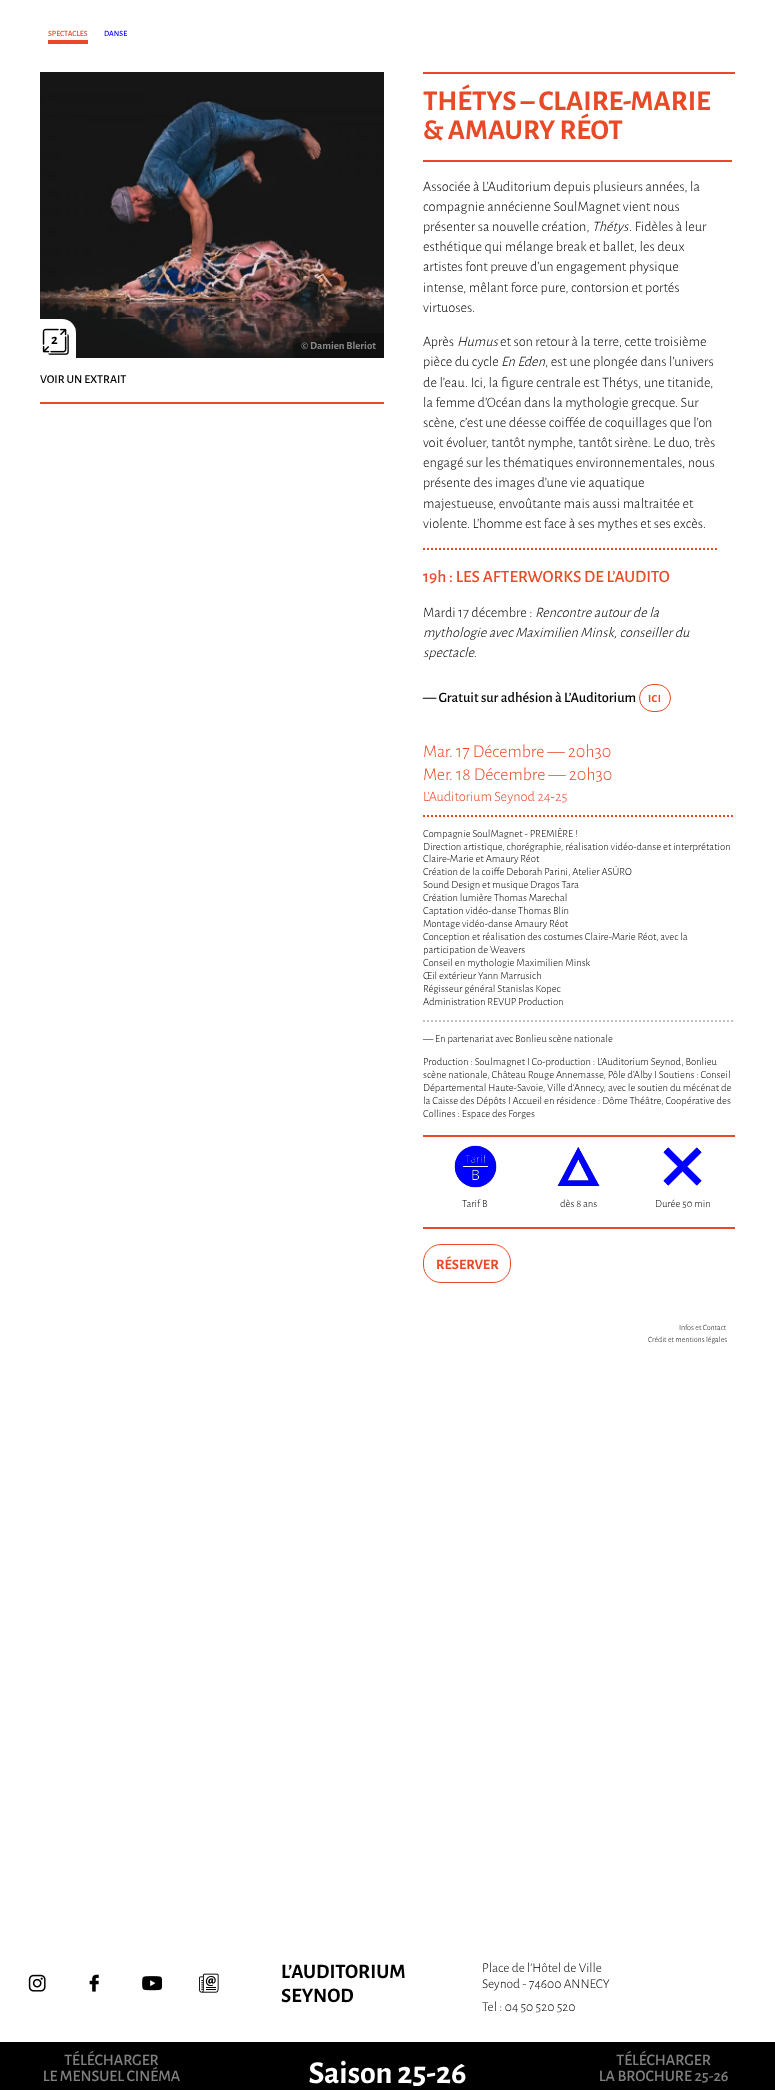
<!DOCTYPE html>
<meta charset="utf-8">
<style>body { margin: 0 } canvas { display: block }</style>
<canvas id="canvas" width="775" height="2090"></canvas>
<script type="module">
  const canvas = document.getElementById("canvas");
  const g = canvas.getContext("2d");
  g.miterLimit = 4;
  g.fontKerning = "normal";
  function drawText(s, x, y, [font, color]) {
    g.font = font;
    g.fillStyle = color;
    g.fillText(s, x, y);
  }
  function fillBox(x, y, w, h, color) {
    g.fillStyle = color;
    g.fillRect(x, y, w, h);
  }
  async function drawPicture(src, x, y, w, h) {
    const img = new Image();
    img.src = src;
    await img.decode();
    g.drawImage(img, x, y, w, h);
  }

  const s1 = ["500 8px Alegreya Sans", "#E84926"];
  const s2 = ["500 8px Alegreya Sans", "#0000FF"];
  const s3 = ["bold 28.75px Alegreya Sans", "#E84926"];
  const s4 = ["bold 14.4px Alegreya Sans", "#000000"];
  const s5 = ["bold 10.8px Alegreya Sans", "#888888"];
  const s6 = ["300 14.4px Alegreya Sans", "#000000"];
  const s7 = ["italic 300 14.4px Alegreya Sans", "#000000"];
  const s8 = ["500 17.25px Alegreya Sans", "#E84926"];
  const s9 = ["500 14.4px Alegreya Sans", "#000000"];
  const s10 = ["bold 10.8px Alegreya Sans", "#E84926"];
  const s11 = ["300 18px Alegreya Sans", "#E84926"];
  const s12 = ["300 14.4px Alegreya Sans", "#E84926"];
  const s13 = ["300 10.8px Alegreya Sans", "#000000"];
  const s14 = ["bold 14.4px Alegreya Sans", "#E84926"];
  const s15 = ["500 12px Alegreya Sans", "#000000"];
  const s16 = ["300 8px Alegreya Sans", "#000000"];
  const s17 = ["bold 20.5px Alegreya Sans", "#000000"];
  const s18 = ["300 13.5px Alegreya Sans", "#000000"];

  fillBox(0, 0, 775, 2090, "#FFFFFF");
  fillBox(48, 40, 40, 4, "#E84926");
  drawText("SPECTACLES", 48, 36, s1);
  drawText("DANSE", 104, 36, s2);
  fillBox(423, 72, 312, 2, "#E84926");
  fillBox(423, 160, 309, 2, "#E84926");
  drawText("THÉTYS – CLAIRE-MARIE", 423, 110, s3);
  drawText("& AMAURY RÉOT", 423, 139, s3);
  await drawPicture("pic1.png", 40, 72, 344, 286);
  g.fillStyle = "#FFFFFF";
  g.beginPath();
  g.roundRect(40, 319, 36, 39, [0, 14, 0, 0]);
  g.fill();
  await drawPicture("pic2.png", 42, 328, 27, 27);
  drawText("2", 51, 344, s4);
  g.fillStyle = "rgba(0, 0, 0, 0.25)";
  g.beginPath();
  g.roundRect(293, 333, 91, 25, [11, 0, 0, 0]);
  g.fill();
  drawText("© Damien Bleriot", 301, 349, s5);
  drawText("Associée à L’Auditorium depuis plusieurs années, la", 423, 191, s6);
  drawText("compagnie annécienne SoulMagnet vient nous", 423, 211, s6);
  drawText("présenter sa nouvelle création,", 423, 231, s6);
  drawText("Thétys", 592, 231, s7);
  drawText(". Fidèles à leur", 629, 231, s6);
  drawText("esthétique qui mélange break et ballet, les deux", 423, 251, s6);
  drawText("artistes font preuve d’un engagement physique", 423, 271, s6);
  drawText("intense, mêlant force pure, contorsion et portés", 423, 292, s6);
  drawText("virtuoses.", 423, 312, s6);
  drawText("Après", 423, 346, s6);
  drawText("Humus", 457, 346, s7);
  drawText("et son retour à la terre, cette troisième", 500, 346, s6);
  drawText("pièce du cycle", 423, 366, s6);
  drawText("En Eden", 501, 366, s7);
  drawText(", est une plongée dans l’univers", 545, 366, s6);
  drawText("de l’eau. Ici, la figure centrale est Thétys, une titanide,", 423, 387, s6);
  drawText("la femme d’Océan dans la mythologie grecque. Sur", 423, 407, s6);
  drawText("scène, c’est une déesse coiffée de coquillages que l’on", 423, 427, s6);
  drawText("voit évoluer, tantôt nymphe, tantôt sirène. Le duo, très", 423, 447, s6);
  drawText("engagé sur les thématiques environnementales, nous", 423, 467, s6);
  drawText("présente des images d’une vie aquatique", 423, 487, s6);
  drawText("majestueuse, envoûtante mais aussi maltraitée et", 423, 508, s6);
  drawText("violente. L’homme est face à ses mythes et ses excès.", 423, 528, s6);
  g.beginPath();
  g.moveTo(423, 549);
  g.lineTo(717, 549);
  g.strokeStyle = "#E84926";
  g.lineWidth = 2;
  g.setLineDash([2, 2]);
  g.stroke();
  drawText("19h : LES AFTERWORKS DE L’AUDITO", 423, 582, s8);
  drawText("Mardi 17 décembre :", 423, 617, s6);
  drawText("Rencontre autour de la", 535, 617, s7);
  drawText("mythologie avec Maximilien Minsk, conseiller du", 423, 637, s7);
  drawText("spectacle.", 423, 657, s7);
  drawText("— Gratuit sur adhésion à L’Auditorium", 423, 702, s9);
  g.beginPath();
  g.roundRect(639.5, 684.5, 31, 27, 13.5);
  g.lineWidth = 1;
  g.setLineDash([]);
  g.stroke();
  g.letterSpacing = "0.5px";
  drawText("ICI", 648, 702, s10);
  g.beginPath();
  g.moveTo(423, 816);
  g.lineTo(735, 816);
  g.lineWidth = 2;
  g.setLineDash([2, 2]);
  g.stroke();
  g.letterSpacing = "0px";
  drawText("Mar. 17 Décembre — 20h30", 423, 757, s11);
  drawText("Mer. 18 Décembre — 20h30", 423, 780, s11);
  drawText("L'Auditorium Seynod 24-25", 423, 801, s12);
  drawText("Compagnie SoulMagnet - PREMIÈRE !", 423, 837, s13);
  drawText("Direction artistique, chorégraphie, réalisation vidéo-danse et interprétation", 423, 850, s13);
  drawText("Claire-Marie et Amaury Réot", 423, 862, s13);
  drawText("Création de la coiffe Deborah Parini, Atelier ASÜRO", 423, 875, s13);
  drawText("Sound Design et musique Dragos Tara", 423, 888, s13);
  drawText("Création lumière Thomas Marechal", 423, 901, s13);
  drawText("Captation vidéo-danse Thomas Blin", 423, 914, s13);
  drawText("Montage vidéo-danse Amaury Réot", 423, 927, s13);
  drawText("Conception et réalisation des costumes Claire-Marie Réot, avec la", 423, 940, s13);
  drawText("participation de Weavers", 423, 953, s13);
  drawText("Conseil en mythologie Maximilien Minsk", 423, 966, s13);
  drawText("Œil extérieur Yann Marrusich", 423, 979, s13);
  drawText("Régisseur général Stanislas Kopec", 423, 992, s13);
  drawText("Administration REVUP Production", 423, 1005, s13);
  g.beginPath();
  g.moveTo(423, 1021);
  g.lineTo(735, 1021);
  g.strokeStyle = "#C0C0C0";
  g.stroke();
  drawText("— En partenariat avec Bonlieu scène nationale", 423, 1042, s13);
  drawText("Production : Soulmagnet I Co-production : L’Auditorium Seynod, Bonlieu", 423, 1065, s13);
  drawText("scène nationale, Château Rouge Annemasse, Pôle d’Alby I Soutiens : Conseil", 423, 1078, s13);
  drawText("Départemental Haute-Savoie, Ville d'Annecy, avec le soutien du mécénat de", 423, 1091, s13);
  drawText("la Caisse des Dépôts I Accueil en résidence : Dôme Théâtre, Coopérative des", 423, 1104, s13);
  drawText("Collines : Espace des Forges", 423, 1117, s13);
  fillBox(423, 1135, 312, 2, "#E84926");
  fillBox(423, 1227, 312, 2, "#E84926");
  await drawPicture("pic3.png", 454, 1145, 43, 43);
  drawText("Tarif B", 462, 1207, s13);
  await drawPicture("pic4.png", 557, 1147, 43, 39);
  drawText("dès 8 ans", 560, 1207, s13);
  await drawPicture("pic5.png", 663, 1147, 39, 39);
  drawText("Durée 50 min", 655, 1207, s13);
  g.beginPath();
  g.roundRect(423.5, 1244.5, 87, 38, 17.5);
  g.strokeStyle = "#E84926";
  g.lineWidth = 1;
  g.setLineDash([]);
  g.stroke();
  drawText("RÉSERVER", 436, 1269, s14);
  fillBox(40, 402, 344, 2, "#E84926");
  drawText("VOIR UN EXTRAIT", 40, 383, s15);
  drawText("Infos et Contact", 679, 1330, s16);
  drawText("Crédit et mentions légales", 648, 1342, s16);
  await drawPicture("pic6.png", 28, 1974, 18, 18);
  await drawPicture("pic7.png", 89, 1974, 10, 18);
  await drawPicture("pic8.png", 142, 1976, 20, 15);
  await drawPicture("pic9.png", 199, 1973, 20, 20);
  drawText("L’AUDITORIUM", 281, 1978, s17);
  drawText("SEYNOD", 281, 2002, s17);
  drawText("Place de l’Hôtel de Ville", 482, 1972, s18);
  drawText("Seynod - 74600 ANNECY", 482, 1988, s18);
  drawText("Tel : 04 50 520 520", 482, 2011, s18);
  fillBox(0, 2042, 775, 48, "#000000");
  await drawPicture("pic10.png", 44, 2051, 684, 35);
</script>
